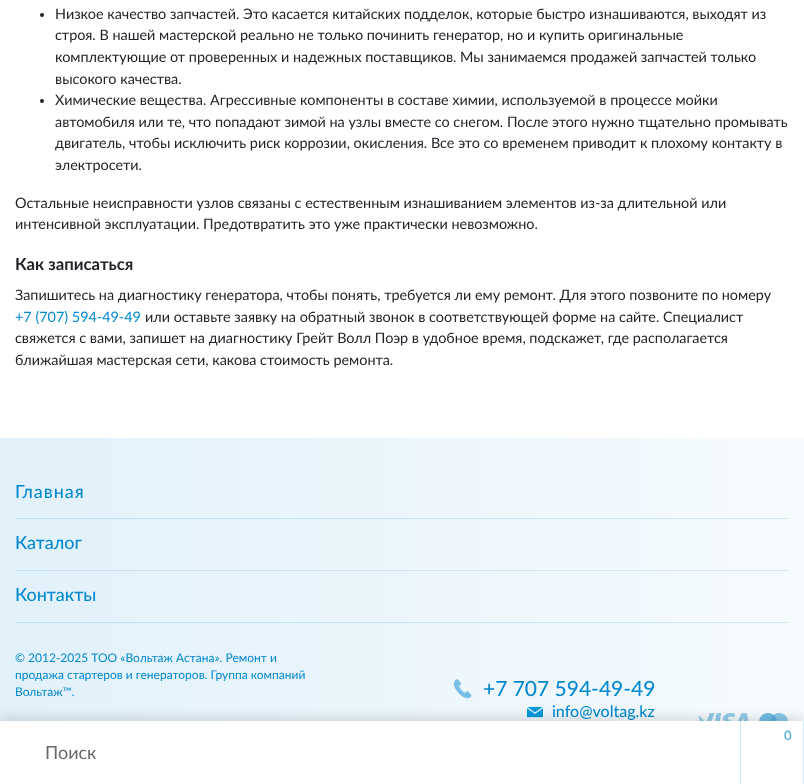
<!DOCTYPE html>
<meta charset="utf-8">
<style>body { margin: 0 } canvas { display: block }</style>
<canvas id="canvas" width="804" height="784"></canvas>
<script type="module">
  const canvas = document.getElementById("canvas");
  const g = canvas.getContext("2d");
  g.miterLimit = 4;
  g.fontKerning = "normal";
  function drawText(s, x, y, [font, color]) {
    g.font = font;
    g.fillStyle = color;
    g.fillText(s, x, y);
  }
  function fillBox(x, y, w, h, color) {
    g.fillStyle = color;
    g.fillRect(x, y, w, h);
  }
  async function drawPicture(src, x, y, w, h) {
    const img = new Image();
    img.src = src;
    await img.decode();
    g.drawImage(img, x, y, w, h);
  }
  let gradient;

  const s1 = ["14.4px Lato", "#212529"];
  const s2 = ["bold 16.75px Lato", "#212529"];
  const s3 = ["14.4px Lato", "#0288D1"];
  const s4 = ["500 18px Lato", "#0288D1"];
  const s5 = ["12px Lato", "#0288D1"];
  const s6 = ["500 21px Lato", "#0288D1"];
  const s7 = ["500 16px Lato", "#0288D1"];
  const s8 = ["600 13px Lato", "#4EACDF"];
  const s9 = ["18px Lato", "#686868"];

  fillBox(0, 0, 804, 784, "#FFFFFF");
  g.fillStyle = "#212529";
  g.beginPath();
  g.arc(42, 15, 2, 0, Math.PI * 2);
  g.fill();
  drawText("Низкое качество запчастей. Это касается китайских подделок, которые быстро изнашиваются, выходят из", 55, 19, s1);
  drawText("строя. В нашей мастерской реально не только починить генератор, но и купить оригинальные", 55, 40, s1);
  drawText("комплектующие от проверенных и надежных поставщиков. Мы занимаемся продажей запчастей только", 55, 62, s1);
  drawText("высокого качества.", 55, 84, s1);
  g.beginPath();
  g.arc(42, 101, 2, 0, Math.PI * 2);
  g.fill();
  drawText("Химические вещества. Агрессивные компоненты в составе химии, используемой в процессе мойки", 55, 105, s1);
  drawText("автомобиля или те, что попадают зимой на узлы вместе со снегом. После этого нужно тщательно промывать", 55, 127, s1);
  drawText("двигатель, чтобы исключить риск коррозии, окисления. Все это со временем приводит к плохому контакту в", 55, 148, s1);
  drawText("электросети.", 55, 170, s1);
  drawText("Остальные неисправности узлов связаны с естественным изнашиванием элементов из-за длительной или", 15, 208, s1);
  drawText("интенсивной эксплуатации. Предотвратить это уже практически невозможно.", 15, 229, s1);
  drawText("Как записаться", 15, 270, s2);
  drawText("Запишитесь на диагностику генератора, чтобы понять, требуется ли ему ремонт. Для этого позвоните по номеру", 15, 300, s1);
  drawText("+7 (707) 594-49-49", 15, 322, s3);
  drawText("или оставьте заявку на обратный звонок в соответствующей форме на сайте. Специалист", 145, 322, s1);
  drawText("свяжется с вами, запишет на диагностику Грейт Волл Поэр в удобное время, подскажет, где располагается", 15, 343, s1);
  drawText("ближайшая мастерская сети, какова стоимость ремонта.", 15, 365, s1);
  gradient = g.createLinearGradient(0, 632, 804, 632);
  gradient.addColorStop(0, "#E1F1FA");
  gradient.addColorStop(1, "#F6FBFE");
  g.fillStyle = gradient;
  g.fillRect(0, 438, 804, 283);
  gradient = g.createLinearGradient(0, 632, 804, 632);
  gradient.addColorStop(0, "#C0E1F4");
  gradient.addColorStop(1, "#D1EAF7");
  g.fillStyle = gradient;
  g.fillRect(15, 622, 774, 1);
  g.fillRect(15, 570, 774, 1);
  g.fillRect(15, 518, 774, 1);
  g.letterSpacing = "1px";
  drawText("Главная", 15, 498, s4);
  g.letterSpacing = "0px";
  drawText("Каталог", 15, 549, s4);
  drawText("Контакты", 15, 601, s4);
  drawText("© 2012-2025 ТОО «Вольтаж Астана». Ремонт и", 15, 662, s5);
  drawText("продажа стартеров и генераторов. Группа компаний", 15, 679, s5);
  drawText("Вольтаж™.", 15, 696, s5);
  await drawPicture("pic1.png", 454, 679, 18, 20);
  drawText("+7 707 594-49-49", 483, 696, s6);
  await drawPicture("pic2.png", 527, 706, 16, 12);
  drawText("info@voltag.kz", 552, 717, s7);
  await drawPicture("pic3.png", 759, 713, 29, 8);
  await drawPicture("pic4.png", 698, 713, 51, 8);
  g.fillStyle = "rgba(0, 0, 0, 0.1)";
  g.filter = "blur(4px)";
  g.beginPath();
  g.rect(0, 716, 804, 64);
  g.fill();
  g.filter = "none";
  fillBox(0, 721, 803, 63, "#FFFFFF");
  fillBox(803, 721, 1, 63, "#CDE7F6");
  fillBox(740, 721, 1, 63, "#CDE7F6");
  drawText("0", 784, 740, s8);
  drawText("Поиск", 45, 759, s9);
</script>
